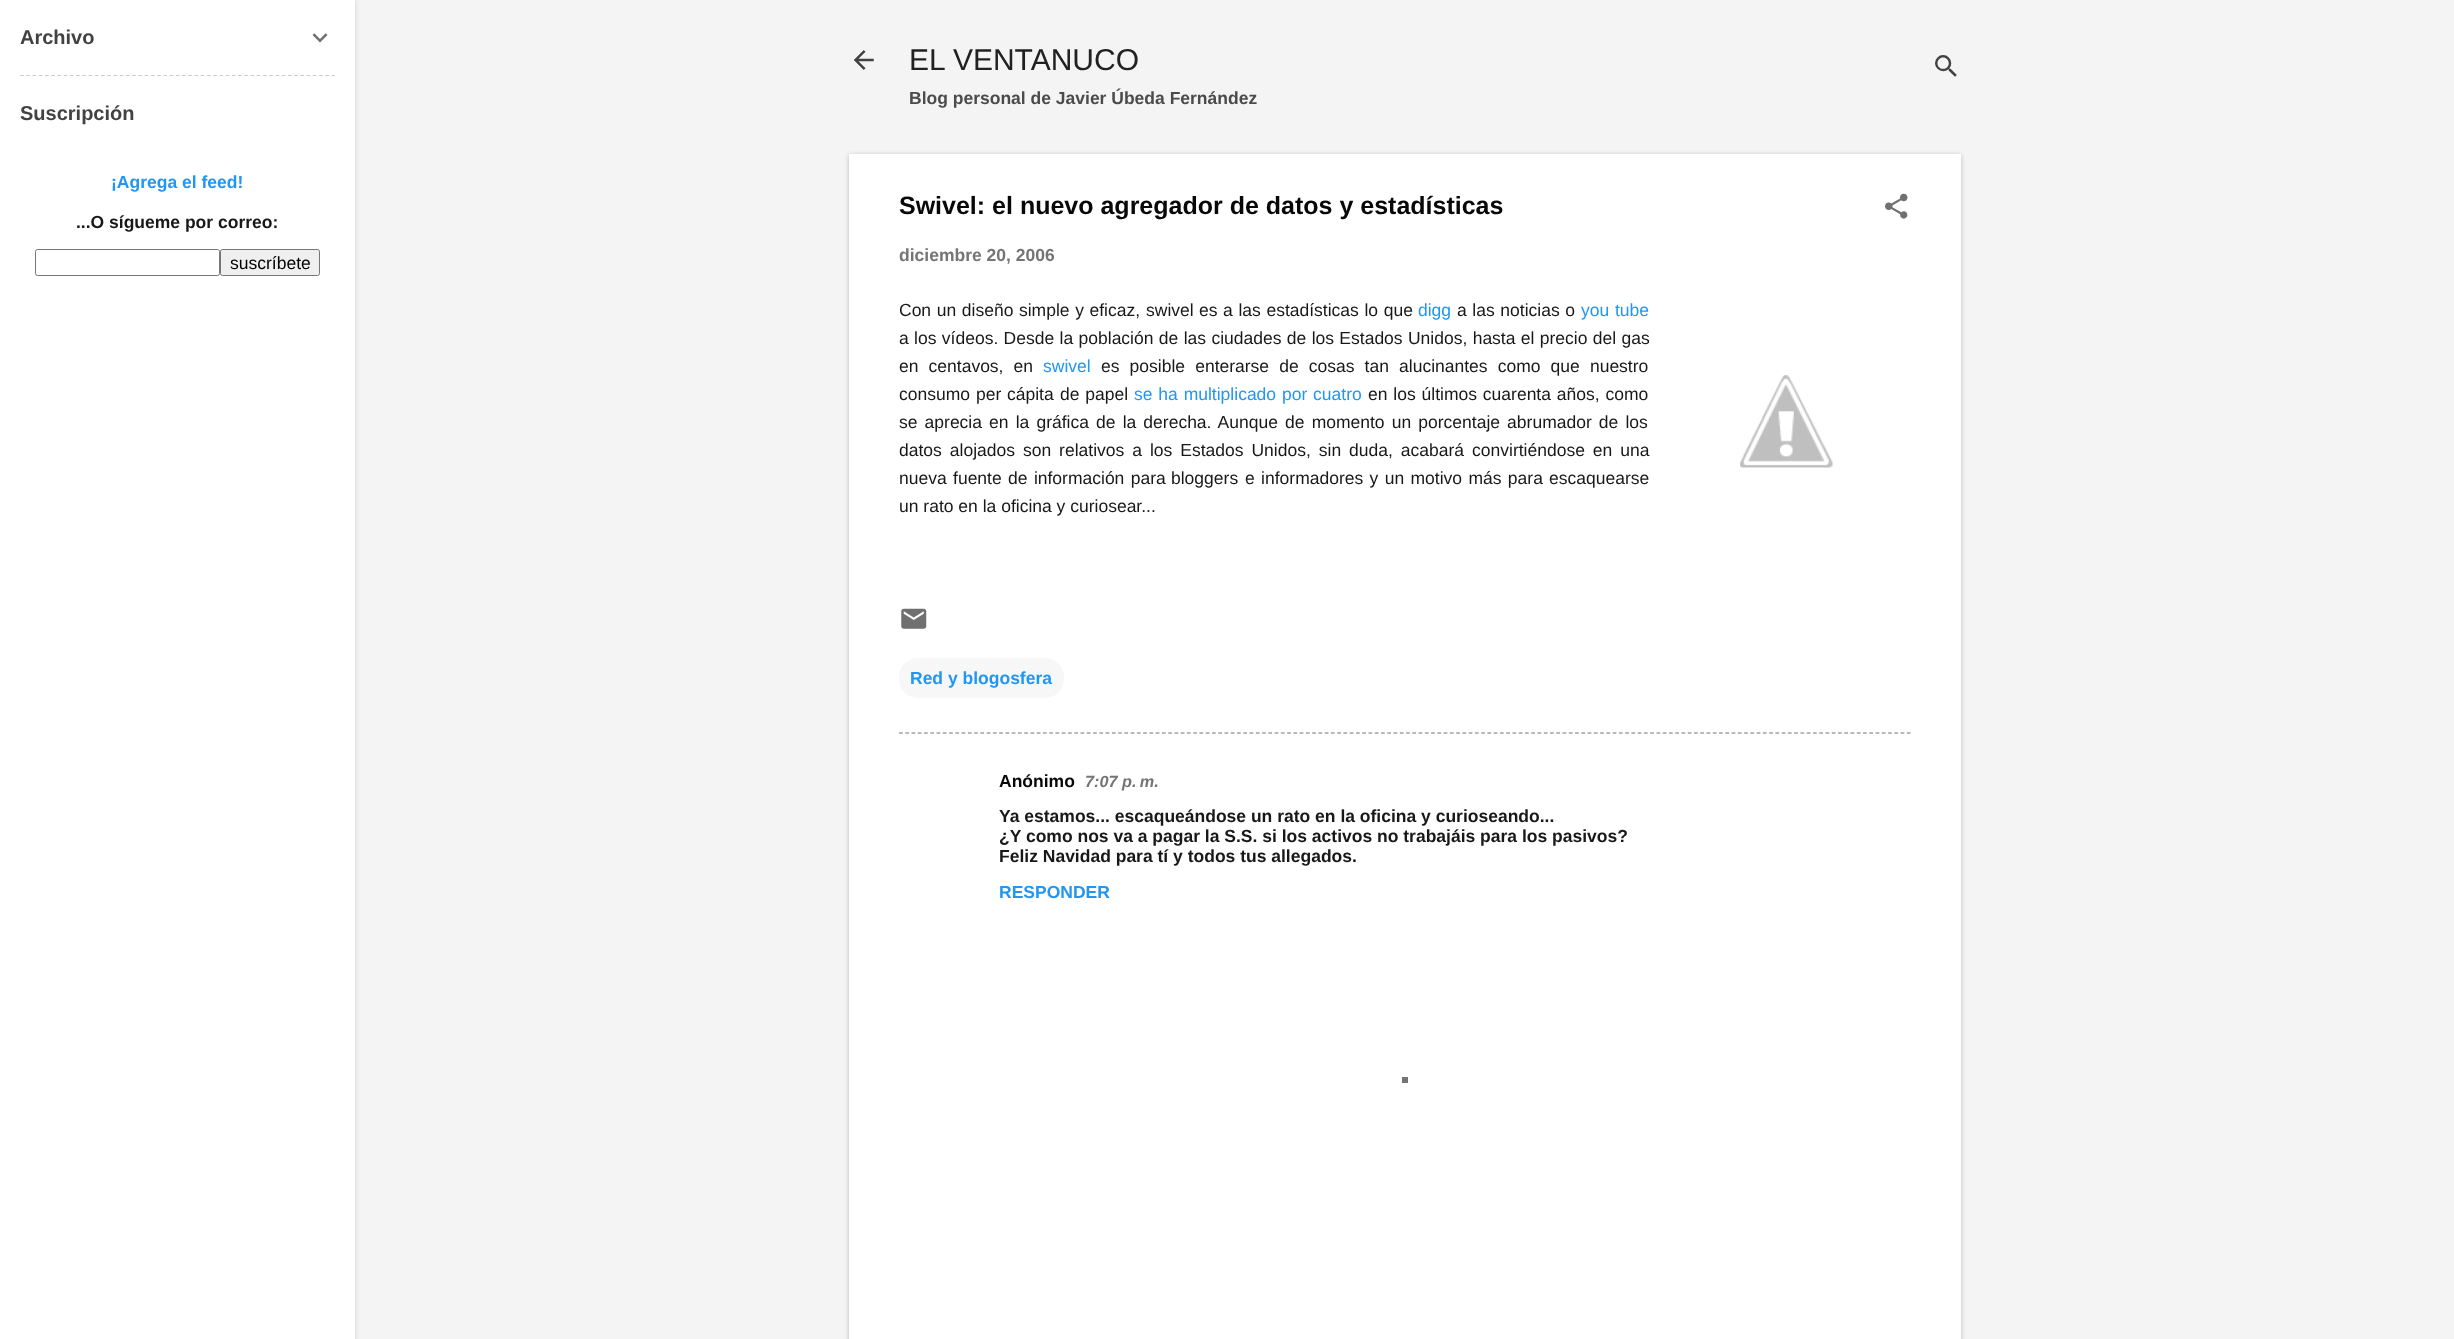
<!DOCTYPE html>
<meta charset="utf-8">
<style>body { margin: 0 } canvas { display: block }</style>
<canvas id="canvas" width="2454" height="1339"></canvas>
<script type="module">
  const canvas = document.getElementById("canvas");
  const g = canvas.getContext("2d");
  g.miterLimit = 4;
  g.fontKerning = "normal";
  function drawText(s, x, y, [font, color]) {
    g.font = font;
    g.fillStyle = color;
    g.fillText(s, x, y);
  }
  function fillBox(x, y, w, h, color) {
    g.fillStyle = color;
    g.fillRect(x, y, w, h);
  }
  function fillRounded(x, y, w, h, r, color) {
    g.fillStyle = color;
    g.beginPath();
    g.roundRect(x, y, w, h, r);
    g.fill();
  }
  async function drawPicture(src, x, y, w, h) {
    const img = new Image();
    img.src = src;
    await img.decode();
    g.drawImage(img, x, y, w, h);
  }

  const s1 = ["bold 20px Liberation Sans", "#424242"];
  const s2 = ["bold 17.5px Liberation Sans", "#2196F3"];
  const s3 = ["bold 17.5px Liberation Sans", "#181818"];
  const s4 = ["17.5px Liberation Sans", "#000000"];
  const s5 = ["30px Liberation Sans", "#212121"];
  const s6 = ["bold 17.5px Liberation Sans", "#4B4B4B"];
  const s7 = ["bold 25px Liberation Sans", "#080808"];
  const s8 = ["bold 17.5px Liberation Sans", "#757575"];
  const s9 = ["17.5px Liberation Sans", "#181818"];
  const s10 = ["17.5px Liberation Sans", "#2196F3"];
  const s11 = ["bold 17.5px Liberation Sans", "#080808"];
  const s12 = ["italic bold 16.25px Liberation Sans", "#757575"];

  fillBox(0, 0, 2454, 1339, "#F4F4F4");
  g.fillStyle = "rgba(0, 0, 0, 0.1)";
  g.filter = "blur(2px)";
  g.beginPath();
  g.rect(1, 1, 355, 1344);
  g.fill();
  g.filter = "none";
  fillBox(0, 0, 355, 1339, "#FFFFFF");
  drawText("Archivo", 20, 44, s1);
  await drawPicture("pic1.png", 312, 33, 16, 10);
  g.beginPath();
  g.moveTo(20, 75.5);
  g.lineTo(335, 75.5);
  g.strokeStyle = "#CCCCCC";
  g.lineWidth = 1.2;
  g.setLineDash([3.75, 2.48]);
  g.stroke();
  drawText("Suscripción", 20, 120, s1);
  drawText("¡Agrega el feed!", 111, 188, s2);
  drawText("...O sígueme por correo:", 76, 228, s3);
  g.beginPath();
  g.roundRect(35.5, 249.5, 184, 26, 2);
  g.strokeStyle = "#767676";
  g.lineWidth = 1;
  g.setLineDash([]);
  g.stroke();
  g.fillStyle = "#EFEFEF";
  g.beginPath();
  g.roundRect(220.5, 249.5, 99, 26, 2);
  g.fill();
  g.stroke();
  drawText("suscríbete", 230, 269, s4);
  await drawPicture("pic2.png", 854, 50, 20, 20);
  drawText("EL VENTANUCO", 909, 70, s5);
  drawText("Blog personal de Javier Úbeda Fernández", 909, 104, s6);
  await drawPicture("pic3.png", 1935, 55, 22, 22);
  g.fillStyle = "rgba(60, 64, 67, 0.3)";
  g.filter = "blur(2.5px)";
  g.beginPath();
  g.rect(849, 155, 1112, 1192);
  g.fill();
  g.filter = "none";
  fillBox(849, 154, 1112, 1185, "#FFFFFF");
  drawText("Swivel: el nuevo agregador de datos y estadísticas", 899, 214, s7);
  await drawPicture("pic4.png", 1885, 193, 23, 26);
  drawText("diciembre 20, 2006", 899, 261, s8);
  g.wordSpacing = "0.75px";
  drawText("Con un diseño simple y eficaz,", 899, 316, s9);
  g.wordSpacing = "0px";
  drawText("swivel", 1146, 316, s9);
  g.wordSpacing = "0.75px";
  drawText("es a las estadísticas lo que", 1199, 316, s9);
  g.wordSpacing = "0px";
  drawText("digg", 1418, 316, s10);
  g.wordSpacing = "0.75px";
  drawText("a las noticias o", 1457, 316, s9);
  g.wordSpacing = "0px";
  drawText("you", 1581, 316, s10);
  drawText("tube", 1615, 316, s10);
  g.wordSpacing = "0.5px";
  drawText("a los vídeos. Desde la población de las ciudades de los Estados Unidos, hasta el precio del gas", 899, 344, s9);
  g.wordSpacing = "5.25px";
  drawText("en centavos, en", 899, 372, s9);
  g.wordSpacing = "0px";
  drawText("swivel", 1043, 372, s10);
  g.wordSpacing = "5.25px";
  drawText("es posible enterarse de cosas tan alucinantes como que nuestro", 1101, 372, s9);
  g.wordSpacing = "0px";
  drawText("consumo", 899, 400, s9);
  drawText("per", 976, 400, s9);
  drawText("cápita", 1007, 400, s9);
  g.wordSpacing = "1px";
  drawText("de papel", 1060, 400, s9);
  drawText("se ha multiplicado por cuatro", 1134, 400, s10);
  drawText("en los últimos cuarenta años, como", 1368, 400, s9);
  await drawPicture("pic5.png", 1740, 375, 93, 93);
  g.wordSpacing = "2.25px";
  drawText("se aprecia en la gráfica de la derecha. Aunque de momento un porcentaje abrumador de los", 899, 428, s9);
  g.wordSpacing = "3.1px";
  drawText("datos alojados son relativos a los Estados Unidos, sin duda, acabará convirtiéndose en una", 899, 456, s9);
  g.wordSpacing = "1.5px";
  drawText("nueva fuente de información para", 899, 484, s9);
  g.wordSpacing = "0px";
  drawText("bloggers", 1171, 484, s9);
  g.wordSpacing = "1.5px";
  drawText("e informadores y un motivo más para", 1245, 484, s9);
  g.wordSpacing = "0px";
  drawText("escaquearse", 1549, 484, s9);
  drawText("un rato en la oficina y curiosear...", 899, 512, s9);
  await drawPicture("pic6.png", 901, 608, 26, 21);
  fillRounded(899, 658, 165, 40, 19, "#F7F7F7");
  drawText("Red y blogosfera", 910, 684, s2);
  g.beginPath();
  g.moveTo(899, 733);
  g.lineTo(1911, 733);
  g.strokeStyle = "#757575";
  g.lineWidth = 1.2;
  g.setLineDash([3.75, 2.51]);
  g.stroke();
  drawText("Anónimo", 999, 787, s11);
  drawText("7:07 p. m.", 1085, 787, s12);
  drawText("Ya estamos... escaqueándose un rato en la oficina y curioseando...", 999, 822, s3);
  drawText("¿Y como nos va a pagar la S.S. si los activos no trabajáis para los pasivos?", 999, 842, s3);
  drawText("Feliz Navidad para tí y todos tus allegados.", 999, 862, s3);
  drawText("RESPONDER", 999, 898, s2);
  fillBox(1402, 1077, 6, 6, "#757575");
</script>
